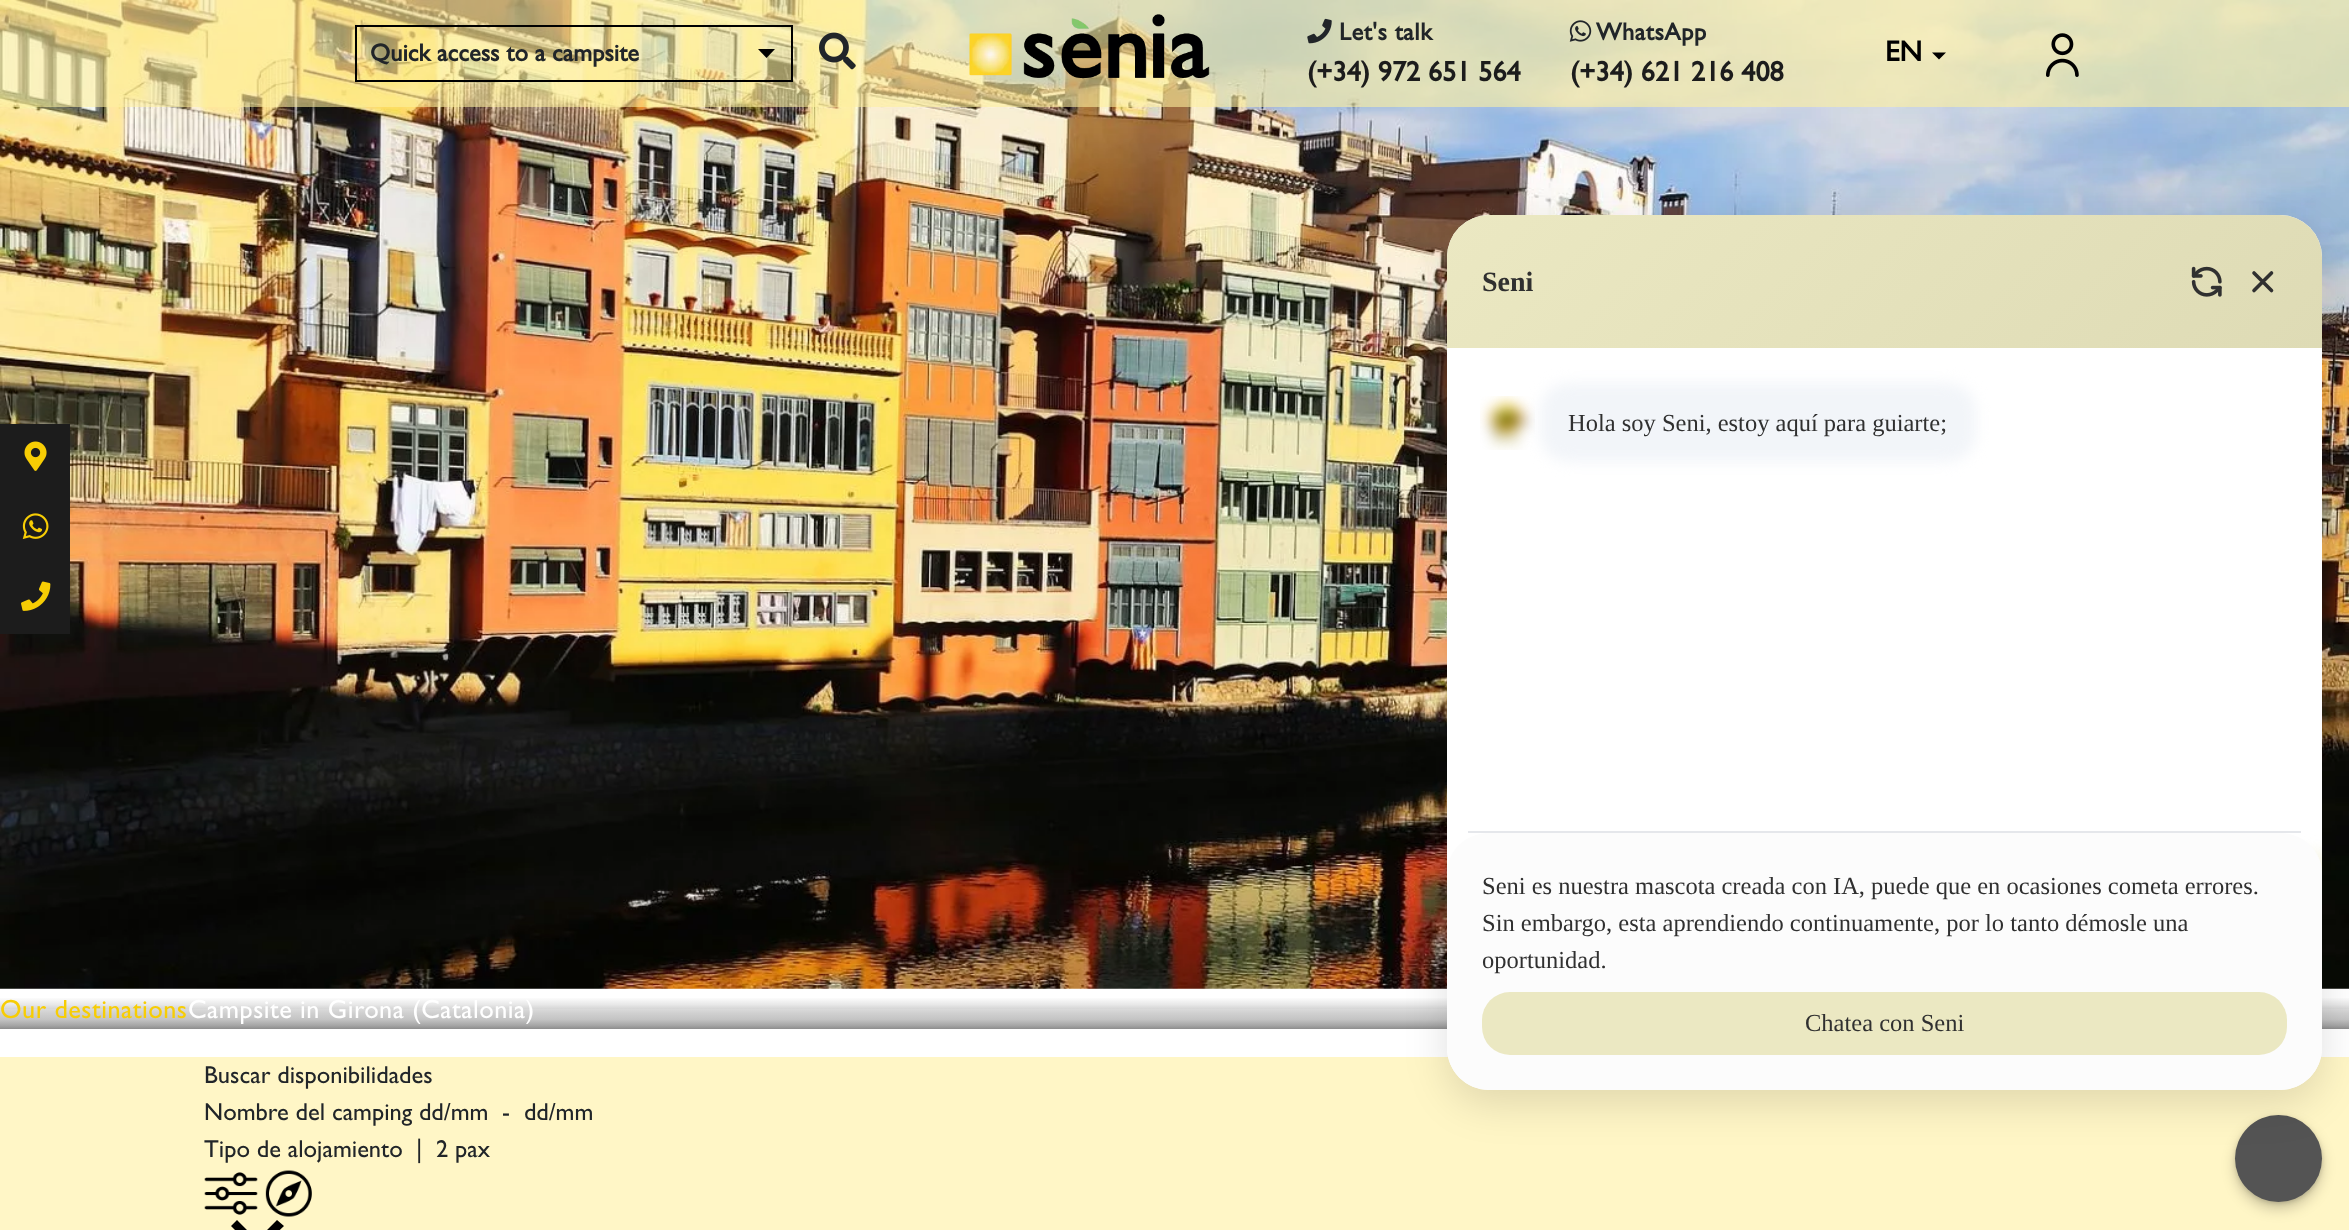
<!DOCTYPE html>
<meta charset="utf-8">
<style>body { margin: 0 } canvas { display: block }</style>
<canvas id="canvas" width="2349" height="1230"></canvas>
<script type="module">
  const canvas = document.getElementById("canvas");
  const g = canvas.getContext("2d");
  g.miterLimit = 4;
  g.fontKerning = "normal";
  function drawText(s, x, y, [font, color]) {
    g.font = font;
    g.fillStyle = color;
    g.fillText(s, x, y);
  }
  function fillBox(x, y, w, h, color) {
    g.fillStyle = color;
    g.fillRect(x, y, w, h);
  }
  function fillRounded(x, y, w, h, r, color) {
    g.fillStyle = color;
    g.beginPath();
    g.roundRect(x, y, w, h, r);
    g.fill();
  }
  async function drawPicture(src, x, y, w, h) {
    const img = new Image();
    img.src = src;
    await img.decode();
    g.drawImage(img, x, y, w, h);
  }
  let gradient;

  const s1 = ["bold 24.5px Gill Sans", "#212529"];
  const s2 = ["bold 28.25px Gill Sans", "#1C1C1C"];
  const s3 = ["bold 29px Gill Sans", "#000000"];
  const s4 = ["500 26.25px Gill Sans", "#F7CD04"];
  const s5 = ["500 26.25px Gill Sans", "#FFFFFF"];
  const s6 = ["bold 28px Liberation Serif", "#303030"];
  const s7 = ["24.5px Liberation Serif", "#303030"];
  const s8 = ["500 24.5px Gill Sans", "#212529"];

  fillBox(0, 0, 2349, 1230, "#FFFFFF");
  await drawPicture("pic9.png", 0, 0, 2349, 989);
  fillBox(0, 0, 2349, 107, "rgba(254, 240, 159, 0.6)");
  g.strokeStyle = "#000000";
  g.lineWidth = 2;
  g.strokeRect(356, 26, 436, 55);
  drawText("Quick access to a campsite", 370, 61, s1);
  g.fillStyle = "#000000";
  g.beginPath();
  g.moveTo(758, 49);
  g.lineTo(775, 49);
  g.lineTo(766.5, 58);
  g.closePath();
  g.fill();
  await drawPicture("pic1.png", 819, 32, 37, 38);
  await drawPicture("pic2.png", 969, 14, 241, 65);
  await drawPicture("pic3.png", 1307, 18, 25, 26);
  g.letterSpacing = "0.5px";
  drawText("Let's talk", 1339, 40, s1);
  g.letterSpacing = "0px";
  drawText("(+34) 972 651 564", 1307, 81, s2);
  await drawPicture("pic4.png", 1569, 20, 23, 22);
  g.letterSpacing = "0.5px";
  drawText("WhatsApp", 1596, 40, s1);
  g.letterSpacing = "0px";
  drawText("(+34) 621 216 408", 1570, 81, s2);
  drawText("EN", 1885, 61, s3);
  g.beginPath();
  g.moveTo(1932, 52.5);
  g.lineTo(1946, 52.5);
  g.lineTo(1939, 59.5);
  g.closePath();
  g.fill();
  await drawPicture("pic5.png", 2046, 33, 33, 44);
  fillBox(0, 424, 70, 210, "#1C1C1C");
  await drawPicture("pic6.png", 24, 441, 23, 30);
  await drawPicture("pic7.png", 22, 513, 27, 26);
  await drawPicture("pic8.png", 21, 581, 30, 30);
  gradient = g.createLinearGradient(1175, 989, 1175, 1029);
  gradient.addColorStop(0, "#FFFFFF");
  gradient.addColorStop(0.19, "#FFFFFF");
  gradient.addColorStop(0.25, "#F9F9F9");
  gradient.addColorStop(0.33, "#EFEFEF");
  gradient.addColorStop(0.39, "#E8E8E8");
  gradient.addColorStop(0.5, "#D5D5D5");
  gradient.addColorStop(0.51, "#D9D9D9");
  gradient.addColorStop(0.6, "#D0D0D0");
  gradient.addColorStop(0.76, "#C4C4C4");
  gradient.addColorStop(0.91, "#A6A6A6");
  gradient.addColorStop(1, "#8D8D8D");
  g.fillStyle = gradient;
  g.fillRect(0, 998, 2349, 31);
  g.letterSpacing = "0.5px";
  drawText("Our destinations", 0, 1018, s4);
  drawText("Campsite in Girona (Catalonia)", 188, 1018, s5);
  fillBox(0, 1057, 2349, 173, "#FFF6C6");
  g.fillStyle = "rgba(0, 0, 0, 0.2)";
  g.filter = "blur(7px)";
  g.beginPath();
  g.roundRect(2235, 1122, 87, 87, 43.5);
  g.fill();
  g.filter = "none";
  g.fillStyle = "rgba(0, 0, 0, 0.1)";
  g.filter = "blur(2px)";
  g.beginPath();
  g.roundRect(2237, 1118, 84, 84, 42);
  g.fill();
  g.filter = "none";
  g.filter = "blur(2.5px)";
  g.beginPath();
  g.roundRect(2235, 1117, 87, 87, 43.5);
  g.fill();
  g.filter = "none";
  g.fillStyle = "#545454";
  g.beginPath();
  g.arc(2278.5, 1158.5, 43.5, 0, Math.PI * 2);
  g.fill();
  g.fillStyle = "rgba(0, 0, 0, 0.12)";
  g.filter = "blur(21px)";
  g.beginPath();
  g.roundRect(1447, 229, 875, 875, 42);
  g.fill();
  g.filter = "none";
  fillRounded(1447, 215, 875, 875, 42, "#FFFFFF");
  gradient = g.createLinearGradient(1633, 30, 2137, 534);
  gradient.addColorStop(0, "#EBE8C2");
  gradient.addColorStop(1, "#DEDBB5");
  g.fillStyle = gradient;
  g.beginPath();
  g.roundRect(1447, 215, 875, 133, [42, 42, 0, 0]);
  g.fill();
  g.letterSpacing = "0px";
  drawText("Seni", 1482, 291, s6);
  await drawPicture("pic10.png", 2191, 266, 31, 31);
  g.beginPath();
  g.moveTo(2271.5, 273);
  g.lineTo(2254, 290.5);
  g.moveTo(2254, 273);
  g.lineTo(2271.5, 290.5);
  g.strokeStyle = "#303030";
  g.lineWidth = 3.6;
  g.lineCap = "round";
  g.lineJoin = "round";
  g.stroke();
  await drawPicture("pic11.png", 1480, 396, 55, 54);
  g.fillStyle = "#F2F5F9";
  g.filter = "blur(7px)";
  g.beginPath();
  g.roundRect(1540, 383, 436, 79, 28);
  g.fill();
  g.filter = "none";
  drawText("Hola soy Seni, estoy aquí para guiarte;", 1568, 431, s7);
  g.save();
  g.beginPath();
  g.roundRect(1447, 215, 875, 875, 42);
  g.clip();
  g.fillStyle = "rgba(241, 239, 213, 0.5)";
  g.filter = "blur(7px)";
  g.beginPath();
  g.roundRect(2291, 851, 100, 56, 21);
  g.fill();
  g.filter = "none";
  g.restore();
  g.fillStyle = "#FCFCFC";
  g.beginPath();
  g.moveTo(1489, 833);
  g.bezierCurveTo(1466, 833, 1447, 851, 1447, 873);
  g.lineTo(1447, 1048);
  g.bezierCurveTo(1447, 1071, 1466, 1090, 1489, 1090);
  g.lineTo(2280, 1090);
  g.bezierCurveTo(2303, 1090, 2322, 1071, 2322, 1048);
  g.lineTo(2322, 873);
  g.bezierCurveTo(2322, 851, 2303, 833, 2280, 833);
  g.closePath();
  g.fill();
  fillBox(1468, 831, 833, 2, "#E5E7EB");
  drawText("Seni es nuestra mascota creada con IA, puede que en ocasiones cometa errores.", 1482, 894, s7);
  drawText("Sin embargo, esta aprendiendo continuamente, por lo tanto démosle una", 1482, 931, s7);
  drawText("oportunidad.", 1482, 968, s7);
  fillRounded(1482, 992, 805, 63, 28, "#EBE8C2");
  drawText("Chatea con Seni", 1805, 1031, s7);
  drawText("Buscar disponibilidades", 204, 1083, s8);
  drawText("Nombre del camping dd/mm", 204, 1120, s8);
  drawText("-", 502, 1120, s8);
  drawText("dd/mm", 524, 1120, s8);
  drawText("Tipo de alojamiento", 204, 1157, s8);
  drawText("|", 416, 1157, s8);
  drawText("2 pax", 436, 1157, s8);
  await drawPicture("pic12.png", 204, 1172, 54, 43);
  await drawPicture("pic13.png", 265, 1170, 47, 47);
  g.fillStyle = "#000000";
  g.beginPath();
  g.moveTo(284, 1226);
  g.lineTo(277, 1220);
  g.lineTo(257, 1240);
  g.lineTo(237, 1220);
  g.lineTo(231, 1226);
  g.lineTo(251, 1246);
  g.lineTo(231, 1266);
  g.lineTo(237, 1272);
  g.lineTo(257, 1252);
  g.lineTo(277, 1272);
  g.lineTo(284, 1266);
  g.lineTo(263, 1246);
  g.closePath();
  g.fill();
</script>
